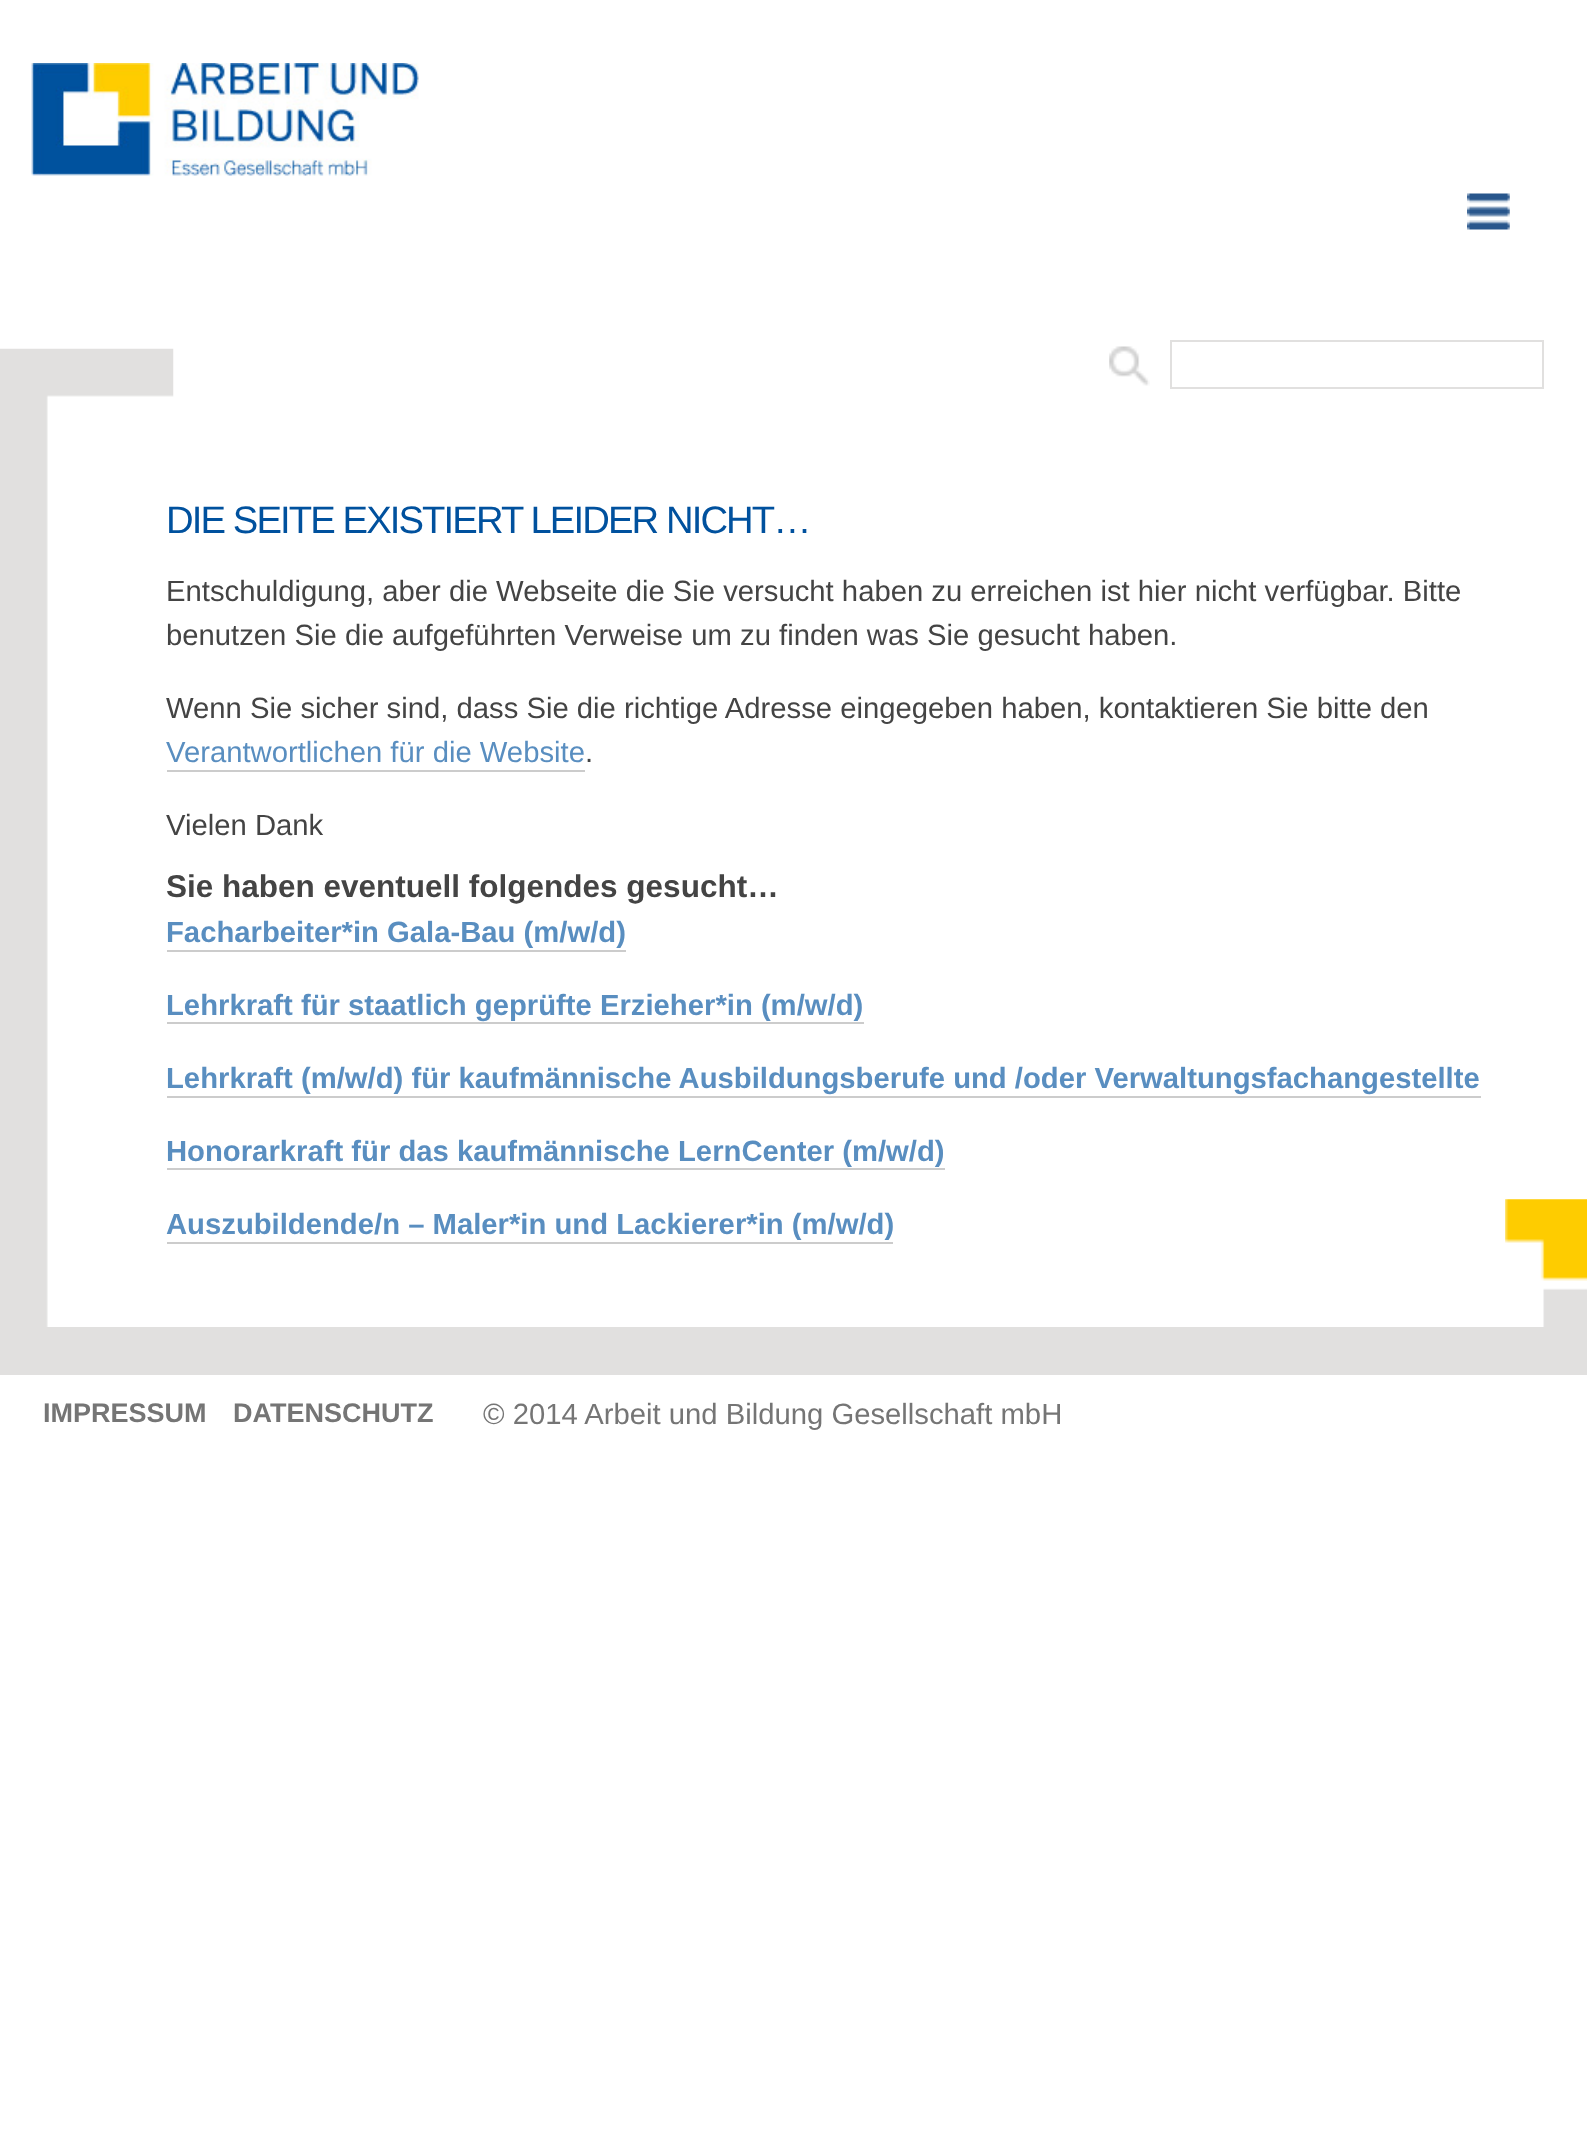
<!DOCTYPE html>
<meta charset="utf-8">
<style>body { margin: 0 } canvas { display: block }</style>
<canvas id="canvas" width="1587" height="2140"></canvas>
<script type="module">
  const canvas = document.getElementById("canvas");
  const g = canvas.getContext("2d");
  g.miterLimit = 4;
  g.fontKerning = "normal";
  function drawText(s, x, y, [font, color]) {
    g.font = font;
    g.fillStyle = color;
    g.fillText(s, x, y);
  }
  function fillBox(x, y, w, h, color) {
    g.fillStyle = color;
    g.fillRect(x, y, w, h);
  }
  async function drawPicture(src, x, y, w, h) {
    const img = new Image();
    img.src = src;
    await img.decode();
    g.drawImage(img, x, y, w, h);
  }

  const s1 = ["38.25px Liberation Sans", "#00519E"];
  const s2 = ["29.25px Liberation Sans", "#444444"];
  const s3 = ["29.25px Liberation Sans", "#598EC0"];
  const s4 = ["bold 31.5px Liberation Sans", "#444444"];
  const s5 = ["bold 29.25px Liberation Sans", "#598EC0"];
  const s6 = ["bold 27px Liberation Sans", "#757575"];
  const s7 = ["29.25px Liberation Sans", "#757575"];

  fillBox(0, 0, 1587, 2140, "#FFFFFF");
  await drawPicture("pic1.png", 0, 348, 174, 979);
  await drawPicture("pic2.png", 31, 63, 388, 113);
  await drawPicture("pic3.png", 1109, 346, 41, 40);
  g.strokeStyle = "#E1E0DF";
  g.lineWidth = 2;
  g.strokeRect(1171, 341, 372, 47);
  await drawPicture("pic4.png", 1467, 193, 43, 37);
  await drawPicture("pic5.png", 1505, 1199, 82, 128);
  g.letterSpacing = "-1.9px";
  drawText("DIE SEITE EXISTIERT LEIDER NICHT…", 166, 533, s1);
  g.letterSpacing = "0px";
  drawText("Entschuldigung, aber die Webseite die Sie versucht haben zu erreichen ist hier nicht verfügbar. Bitte", 166, 601, s2);
  drawText("benutzen Sie die aufgeführten Verweise um zu finden was Sie gesucht haben.", 166, 645, s2);
  drawText("Wenn Sie sicher sind, dass Sie die richtige Adresse eingegeben haben, kontaktieren Sie bitte den", 166, 718, s2);
  drawText("Verantwortlichen für die Website", 166, 762, s3);
  fillBox(167, 770, 418, 2, "#CCCCCC");
  drawText(".", 585, 762, s2);
  drawText("Vielen Dank", 166, 835, s2);
  drawText("Sie haben eventuell folgendes gesucht…", 166, 897, s4);
  drawText("Facharbeiter*in Gala-Bau (m/w/d)", 166, 942, s5);
  fillBox(167, 950, 459, 2, "#CCCCCC");
  drawText("Lehrkraft für staatlich geprüfte Erzieher*in (m/w/d)", 166, 1015, s5);
  fillBox(167, 1022, 697, 2, "#CCCCCC");
  drawText("Lehrkraft (m/w/d) für kaufmännische Ausbildungsberufe und /oder Verwaltungsfachangestellte", 166, 1088, s5);
  fillBox(167, 1096, 1314, 2, "#CCCCCC");
  drawText("Honorarkraft für das kaufmännische LernCenter (m/w/d)", 166, 1161, s5);
  fillBox(167, 1168, 778, 2, "#CCCCCC");
  drawText("Auszubildende/n – Maler*in und Lackierer*in (m/w/d)", 166, 1234, s5);
  fillBox(167, 1242, 726, 2, "#CCCCCC");
  fillBox(0, 1327, 1587, 48, "#E1E0DF");
  drawText("IMPRESSUM", 43, 1422, s6);
  drawText("DATENSCHUTZ", 233, 1422, s6);
  drawText("© 2014 Arbeit und Bildung Gesellschaft mbH", 483, 1424, s7);
</script>
